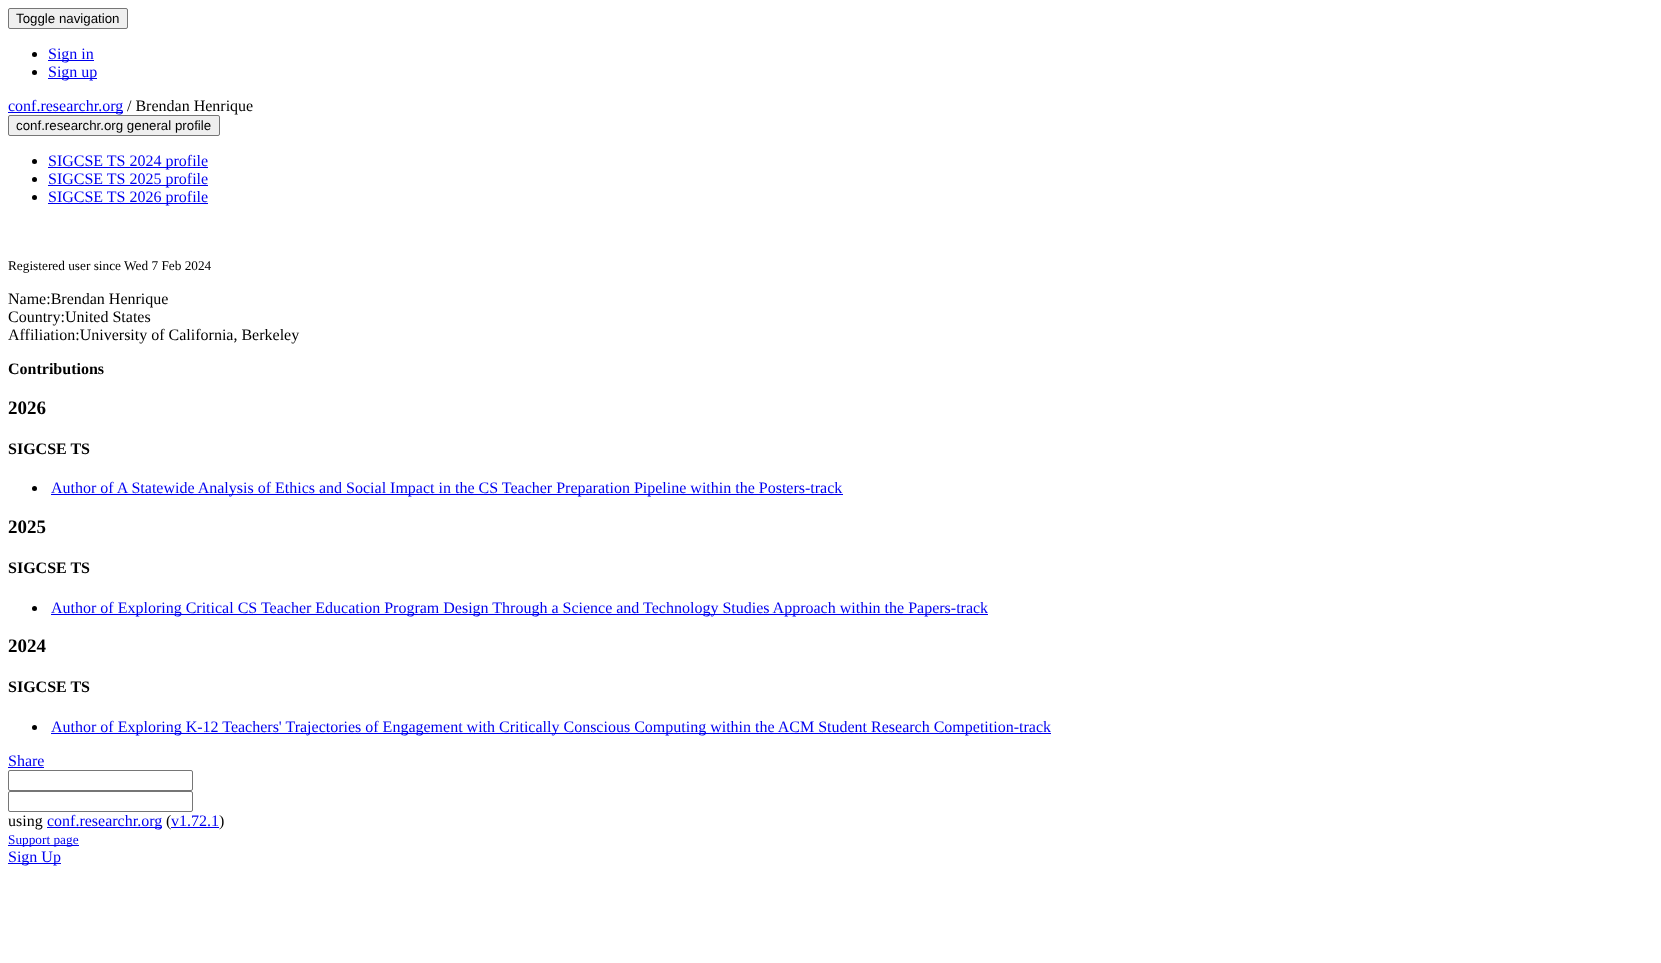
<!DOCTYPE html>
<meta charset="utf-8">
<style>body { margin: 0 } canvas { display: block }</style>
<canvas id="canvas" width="1661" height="963"></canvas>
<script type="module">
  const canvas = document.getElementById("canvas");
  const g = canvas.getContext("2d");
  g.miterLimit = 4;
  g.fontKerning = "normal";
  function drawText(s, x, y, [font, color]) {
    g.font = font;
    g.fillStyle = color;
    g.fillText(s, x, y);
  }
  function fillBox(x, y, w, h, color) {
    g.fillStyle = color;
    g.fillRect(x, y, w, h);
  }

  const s1 = ["13.3px Liberation Sans", "#000000"];
  const s2 = ["16px Liberation Serif", "#0000EE"];
  const s3 = ["16px Liberation Serif", "#000000"];
  const s4 = ["13.3px Liberation Serif", "#000000"];
  const s5 = ["bold 16px Liberation Serif", "#000000"];
  const s6 = ["bold 19px Liberation Serif", "#000000"];
  const s7 = ["13.3px Liberation Serif", "#0000EE"];

  fillBox(0, 0, 1661, 963, "#FFFFFF");
  g.fillStyle = "#EFEFEF";
  g.beginPath();
  g.roundRect(8.5, 8.5, 119, 20, 1.5);
  g.fill();
  g.strokeStyle = "#767676";
  g.stroke();
  drawText("Toggle navigation", 16, 23, s1);
  g.beginPath();
  g.arc(34.5, 54.5, 2.5, 0, Math.PI * 2);
  g.fill();
  fillBox(48, 60, 46, 1, "#0000EE");
  drawText("Sign in", 48, 59, s2);
  g.fillStyle = "#000000";
  g.beginPath();
  g.arc(34.5, 72.5, 2.5, 0, Math.PI * 2);
  g.fill();
  fillBox(48, 78, 49, 1, "#0000EE");
  drawText("Sign up", 48, 77, s2);
  fillBox(8, 112, 115, 1, "#0000EE");
  drawText("conf.researchr.org", 8, 111, s2);
  drawText("/ Brendan Henrique", 127, 111, s3);
  g.fillStyle = "#EFEFEF";
  g.beginPath();
  g.roundRect(8.5, 115.5, 211, 20, 1.5);
  g.fill();
  g.stroke();
  drawText("conf.researchr.org general profile", 16, 130, s1);
  g.beginPath();
  g.arc(34.5, 161.5, 2.5, 0, Math.PI * 2);
  g.fill();
  fillBox(48, 167, 160, 1, "#0000EE");
  drawText("SIGCSE TS 2024 profile", 48, 166, s2);
  g.fillStyle = "#000000";
  g.beginPath();
  g.arc(34.5, 179.5, 2.5, 0, Math.PI * 2);
  g.fill();
  fillBox(48, 185, 160, 1, "#0000EE");
  drawText("SIGCSE TS 2025 profile", 48, 184, s2);
  g.fillStyle = "#000000";
  g.beginPath();
  g.arc(34.5, 197.5, 2.5, 0, Math.PI * 2);
  g.fill();
  fillBox(48, 203, 160, 1, "#0000EE");
  drawText("SIGCSE TS 2026 profile", 48, 202, s2);
  drawText("Registered user since Wed 7 Feb 2024", 8, 270, s4);
  drawText("Name:Brendan Henrique", 8, 304, s3);
  drawText("Country:United States", 8, 322, s3);
  drawText("Affiliation:University of California, Berkeley", 8, 340, s3);
  drawText("Contributions", 8, 374, s5);
  drawText("2026", 8, 414, s6);
  drawText("SIGCSE TS", 8, 454, s5);
  g.beginPath();
  g.arc(34.5, 488.5, 2.5, 0, Math.PI * 2);
  g.fill();
  fillBox(51, 494, 792, 1, "#0000EE");
  drawText("Author of A Statewide Analysis of Ethics and Social Impact in the CS Teacher Preparation Pipeline within the Posters-track", 51, 493, s2);
  drawText("2025", 8, 533, s6);
  drawText("SIGCSE TS", 8, 573, s5);
  g.beginPath();
  g.arc(34.5, 608.5, 2.5, 0, Math.PI * 2);
  g.fill();
  fillBox(51, 614, 937, 1, "#0000EE");
  drawText("Author of Exploring Critical CS Teacher Education Program Design Through a Science and Technology Studies Approach within the Papers-track", 51, 613, s2);
  drawText("2024", 8, 652, s6);
  drawText("SIGCSE TS", 8, 692, s5);
  g.beginPath();
  g.arc(34.5, 727.5, 2.5, 0, Math.PI * 2);
  g.fill();
  fillBox(51, 733, 1000, 1, "#0000EE");
  drawText("Author of Exploring K-12 Teachers' Trajectories of Engagement with Critically Conscious Computing within the ACM Student Research Competition-track", 51, 732, s2);
  drawText("Share", 8, 766, s2);
  fillBox(8, 767, 36, 1, "#0000EE");
  g.beginPath();
  g.roundRect(8.5, 770.5, 184, 20, 1.5);
  g.stroke();
  g.beginPath();
  g.roundRect(8.5, 791.5, 184, 20, 1.5);
  g.stroke();
  drawText("using", 8, 826, s3);
  fillBox(47, 827, 115, 1, "#0000EE");
  drawText("conf.researchr.org", 47, 826, s2);
  drawText("(", 166, 826, s3);
  drawText("v1.72.1", 171, 826, s2);
  fillBox(171, 827, 48, 1, "#0000EE");
  drawText(")", 219, 826, s3);
  fillBox(8, 845, 71, 1, "#0000EE");
  drawText("Support page", 8, 844, s7);
  fillBox(8, 863, 53, 1, "#0000EE");
  drawText("Sign Up", 8, 862, s2);
</script>
